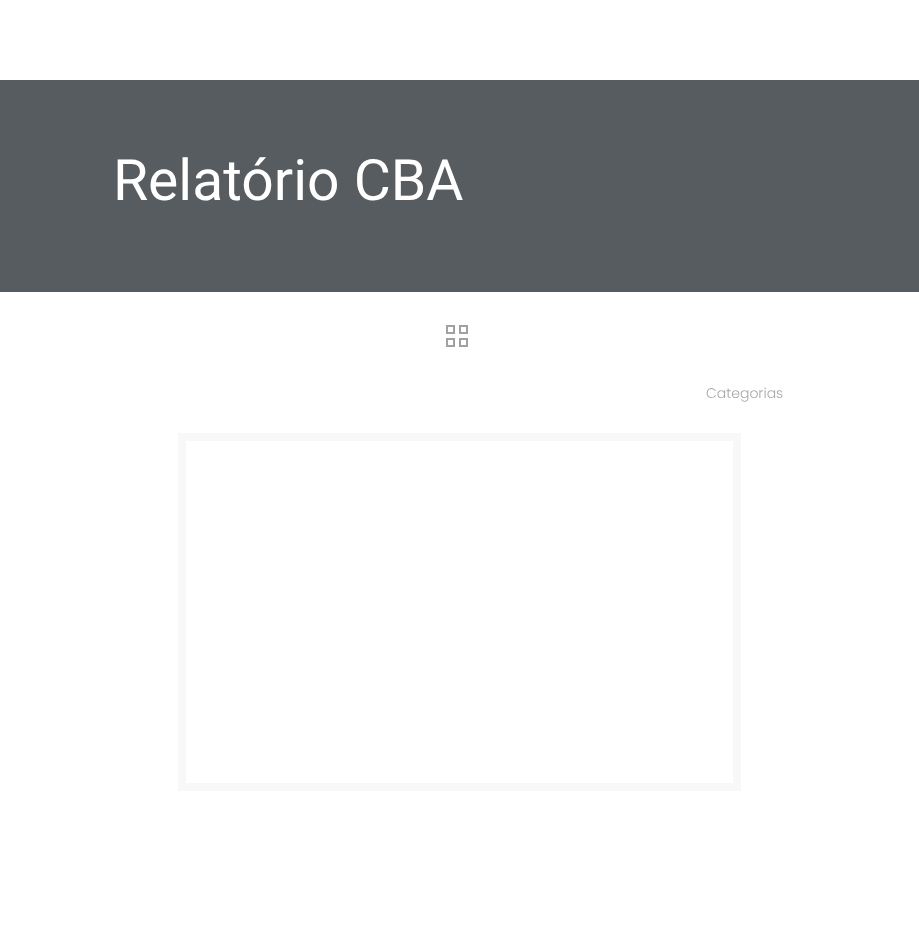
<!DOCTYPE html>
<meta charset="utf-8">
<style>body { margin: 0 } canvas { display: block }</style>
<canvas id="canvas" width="919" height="928"></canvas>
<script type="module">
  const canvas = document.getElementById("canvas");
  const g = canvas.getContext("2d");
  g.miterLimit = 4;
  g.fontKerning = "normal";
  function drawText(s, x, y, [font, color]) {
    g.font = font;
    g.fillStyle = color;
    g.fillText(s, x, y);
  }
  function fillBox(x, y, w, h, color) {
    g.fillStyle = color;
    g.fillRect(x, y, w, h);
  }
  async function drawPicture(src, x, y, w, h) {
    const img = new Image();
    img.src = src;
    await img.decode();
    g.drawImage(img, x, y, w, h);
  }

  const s1 = ["57px Roboto", "#FFFFFF"];
  const s2 = ["300 14px Poppins", "#A8A8A8"];

  fillBox(0, 0, 919, 928, "#FFFFFF");
  fillBox(0, 80, 919, 212, "#575C60");
  drawText("Relatório CBA", 113, 200, s1);
  await drawPicture("pic1.png", 446, 325, 22, 22);
  drawText("Categorias", 706, 398, s2);
  g.strokeStyle = "#F8F8F8";
  g.lineWidth = 8;
  g.strokeRect(182, 437, 555, 350);
</script>
